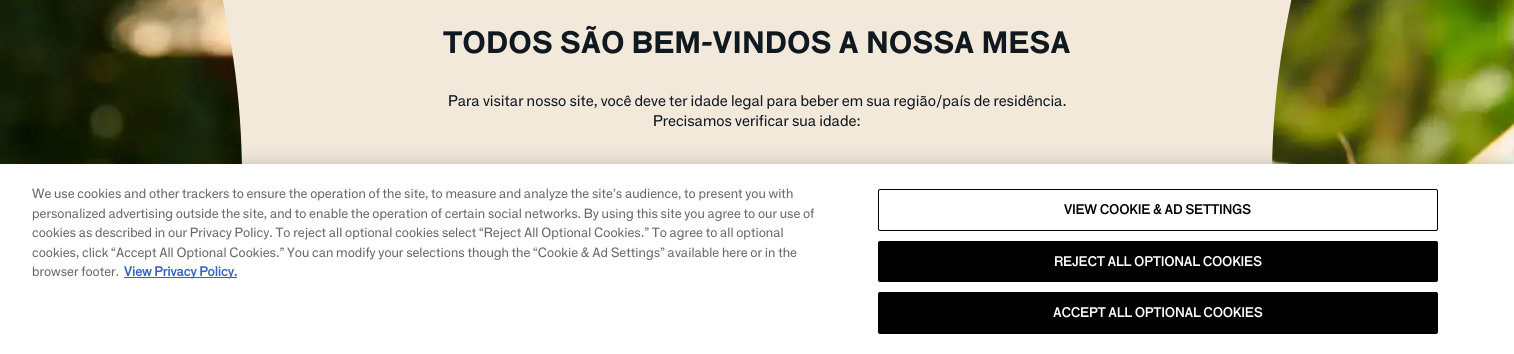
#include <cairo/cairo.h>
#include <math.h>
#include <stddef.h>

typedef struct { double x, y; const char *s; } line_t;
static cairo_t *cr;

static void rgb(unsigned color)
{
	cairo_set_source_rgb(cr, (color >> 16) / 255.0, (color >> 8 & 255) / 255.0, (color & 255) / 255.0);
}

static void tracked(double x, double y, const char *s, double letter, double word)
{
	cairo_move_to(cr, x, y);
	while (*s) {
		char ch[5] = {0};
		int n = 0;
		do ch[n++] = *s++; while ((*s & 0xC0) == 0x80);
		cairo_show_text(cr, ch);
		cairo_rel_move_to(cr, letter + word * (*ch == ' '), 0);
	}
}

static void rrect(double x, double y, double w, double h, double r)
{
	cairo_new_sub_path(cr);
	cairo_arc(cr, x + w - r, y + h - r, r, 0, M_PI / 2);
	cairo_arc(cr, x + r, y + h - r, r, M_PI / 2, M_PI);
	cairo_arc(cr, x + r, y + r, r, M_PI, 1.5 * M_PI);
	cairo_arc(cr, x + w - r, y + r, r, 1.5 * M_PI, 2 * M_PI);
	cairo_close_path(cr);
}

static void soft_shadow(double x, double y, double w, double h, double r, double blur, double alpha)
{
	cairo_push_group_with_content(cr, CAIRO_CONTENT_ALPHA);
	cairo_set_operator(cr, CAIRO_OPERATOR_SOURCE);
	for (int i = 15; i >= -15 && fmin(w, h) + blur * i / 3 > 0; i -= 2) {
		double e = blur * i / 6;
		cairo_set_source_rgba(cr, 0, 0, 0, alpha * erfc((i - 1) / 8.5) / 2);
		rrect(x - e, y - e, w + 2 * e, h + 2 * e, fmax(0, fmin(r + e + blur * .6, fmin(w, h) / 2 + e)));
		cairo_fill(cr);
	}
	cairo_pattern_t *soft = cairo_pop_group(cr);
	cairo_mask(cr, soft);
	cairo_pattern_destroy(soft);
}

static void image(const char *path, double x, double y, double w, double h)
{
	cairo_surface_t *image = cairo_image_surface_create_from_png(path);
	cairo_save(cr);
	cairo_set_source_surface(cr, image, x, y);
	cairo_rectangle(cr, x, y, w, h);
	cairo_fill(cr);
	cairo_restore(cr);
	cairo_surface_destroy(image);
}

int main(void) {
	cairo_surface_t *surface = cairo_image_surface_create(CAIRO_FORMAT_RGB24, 1514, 354);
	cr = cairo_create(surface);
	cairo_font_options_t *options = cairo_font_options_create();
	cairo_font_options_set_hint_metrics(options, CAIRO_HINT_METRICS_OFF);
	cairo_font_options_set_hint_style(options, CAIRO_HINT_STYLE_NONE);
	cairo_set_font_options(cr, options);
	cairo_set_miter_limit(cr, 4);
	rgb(0xffffff);
	cairo_paint(cr);
	image("img/1.png", 0, 0, 1514, 164);
	rgb(0xf2e9db);
	cairo_new_path(cr);
	cairo_move_to(cr, 209, 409);
	cairo_curve_to(cr, 203, 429, 213, 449, 231, 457);
	cairo_curve_to(cr, 391, 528, 569, 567, 757, 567);
	cairo_curve_to(cr, 945, 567, 1123, 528, 1283, 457);
	cairo_curve_to(cr, 1302, 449, 1311, 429, 1305, 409);
	cairo_curve_to(cr, 1284, 334, 1272, 256, 1272, 177);
	cairo_curve_to(cr, 1272, 98, 1284, 20, 1305, -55);
	cairo_curve_to(cr, 1311, -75, 1301, -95, 1283, -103);
	cairo_curve_to(cr, 1123, -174, 945, -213, 757, -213);
	cairo_curve_to(cr, 569, -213, 391, -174, 231, -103);
	cairo_curve_to(cr, 213, -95, 203, -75, 209, -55);
	cairo_curve_to(cr, 230, 20, 242, 97, 242, 177);
	cairo_curve_to(cr, 242, 256, 230, 334, 209, 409);
	cairo_close_path(cr);
	cairo_fill(cr);
	rgb(0x000000);
	soft_shadow(0, 164, 1514, 190, 0, 9, 0.2);
	rgb(0xffffff);
	cairo_rectangle(cr, 0, 164, 1514, 190);
	cairo_fill(cr);
	rgb(0x3860be);
	cairo_rectangle(cr, 124, 277, 113, 1);
	cairo_fill(cr);
	rrect(878.5, 189.5, 559, 41, 1.5);
	rgb(0x000000);
	cairo_set_line_width(cr, 1);
	cairo_stroke(cr);
	rrect(878.5, 241.5, 559, 40, 1.5);
	cairo_fill_preserve(cr);
	cairo_stroke(cr);
	rrect(878.5, 292.5, 559, 41, 1.5);
	cairo_fill_preserve(cr);
	cairo_stroke(cr);
	cairo_select_font_face(cr, "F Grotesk", CAIRO_FONT_SLANT_NORMAL, CAIRO_FONT_WEIGHT_BOLD);
	cairo_set_font_size(cr, 30);
	rgb(0x101820);
	cairo_move_to(cr, 443, 53);
	cairo_show_text(cr, "TODOS SÃO BEM-VINDOS A NOSSA MESA");
	cairo_select_font_face(cr, "F Grotesk", CAIRO_FONT_SLANT_NORMAL, CAIRO_FONT_WEIGHT_NORMAL);
	cairo_set_font_size(cr, 15);
	cairo_move_to(cr, 448, 106);
	cairo_show_text(cr, "Para visitar nosso site, você deve ter idade legal para beber em sua região/país de residência.");
	cairo_move_to(cr, 653, 126);
	cairo_show_text(cr, "Precisamos verificar sua idade:");
	cairo_set_font_size(cr, 13);
	rgb(0x696969);
	{
		static const line_t items[] = {
			{32, 198, "We use cookies and other trackers to ensure the operation of the site, to measure and analyze the site’s audience, to present you with"},
			{32, 218, "personalized advertising outside the site, and to enable the operation of certain social networks. By using this site you agree to our use of"},
			{32, 237, "cookies as described in our Privacy Policy. To reject all optional cookies select “Reject All Optional Cookies.” To agree to all optional"},
			{32, 257, "cookies, click “Accept All Optional Cookies.” You can modify your selections though the “Cookie & Ad Settings” available here or in the"},
			{32, 276, "browser footer."},
		};
		for (size_t i = 0; i < sizeof items / sizeof *items; i++) {
			cairo_move_to(cr, items[i].x, items[i].y);
			cairo_show_text(cr, items[i].s);
		}
	}
	cairo_select_font_face(cr, "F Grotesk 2", CAIRO_FONT_SLANT_NORMAL, CAIRO_FONT_WEIGHT_BOLD);
	rgb(0x3860be);
	cairo_move_to(cr, 124, 276);
	cairo_show_text(cr, "View Privacy Policy.");
	rgb(0x000000);
	tracked(1064, 214, "VIEW COOKIE & AD SETTINGS", 0.1, 0);
	rgb(0xffffff);
	tracked(1054, 266, "REJECT ALL OPTIONAL COOKIES", 0.1, 0);
	tracked(1053, 317, "ACCEPT ALL OPTIONAL COOKIES", 0.1, 0);
	cairo_surface_write_to_png(surface, "page.png");
	cairo_font_options_destroy(options);
	cairo_destroy(cr);
	cairo_surface_destroy(surface);
	return 0;
}
